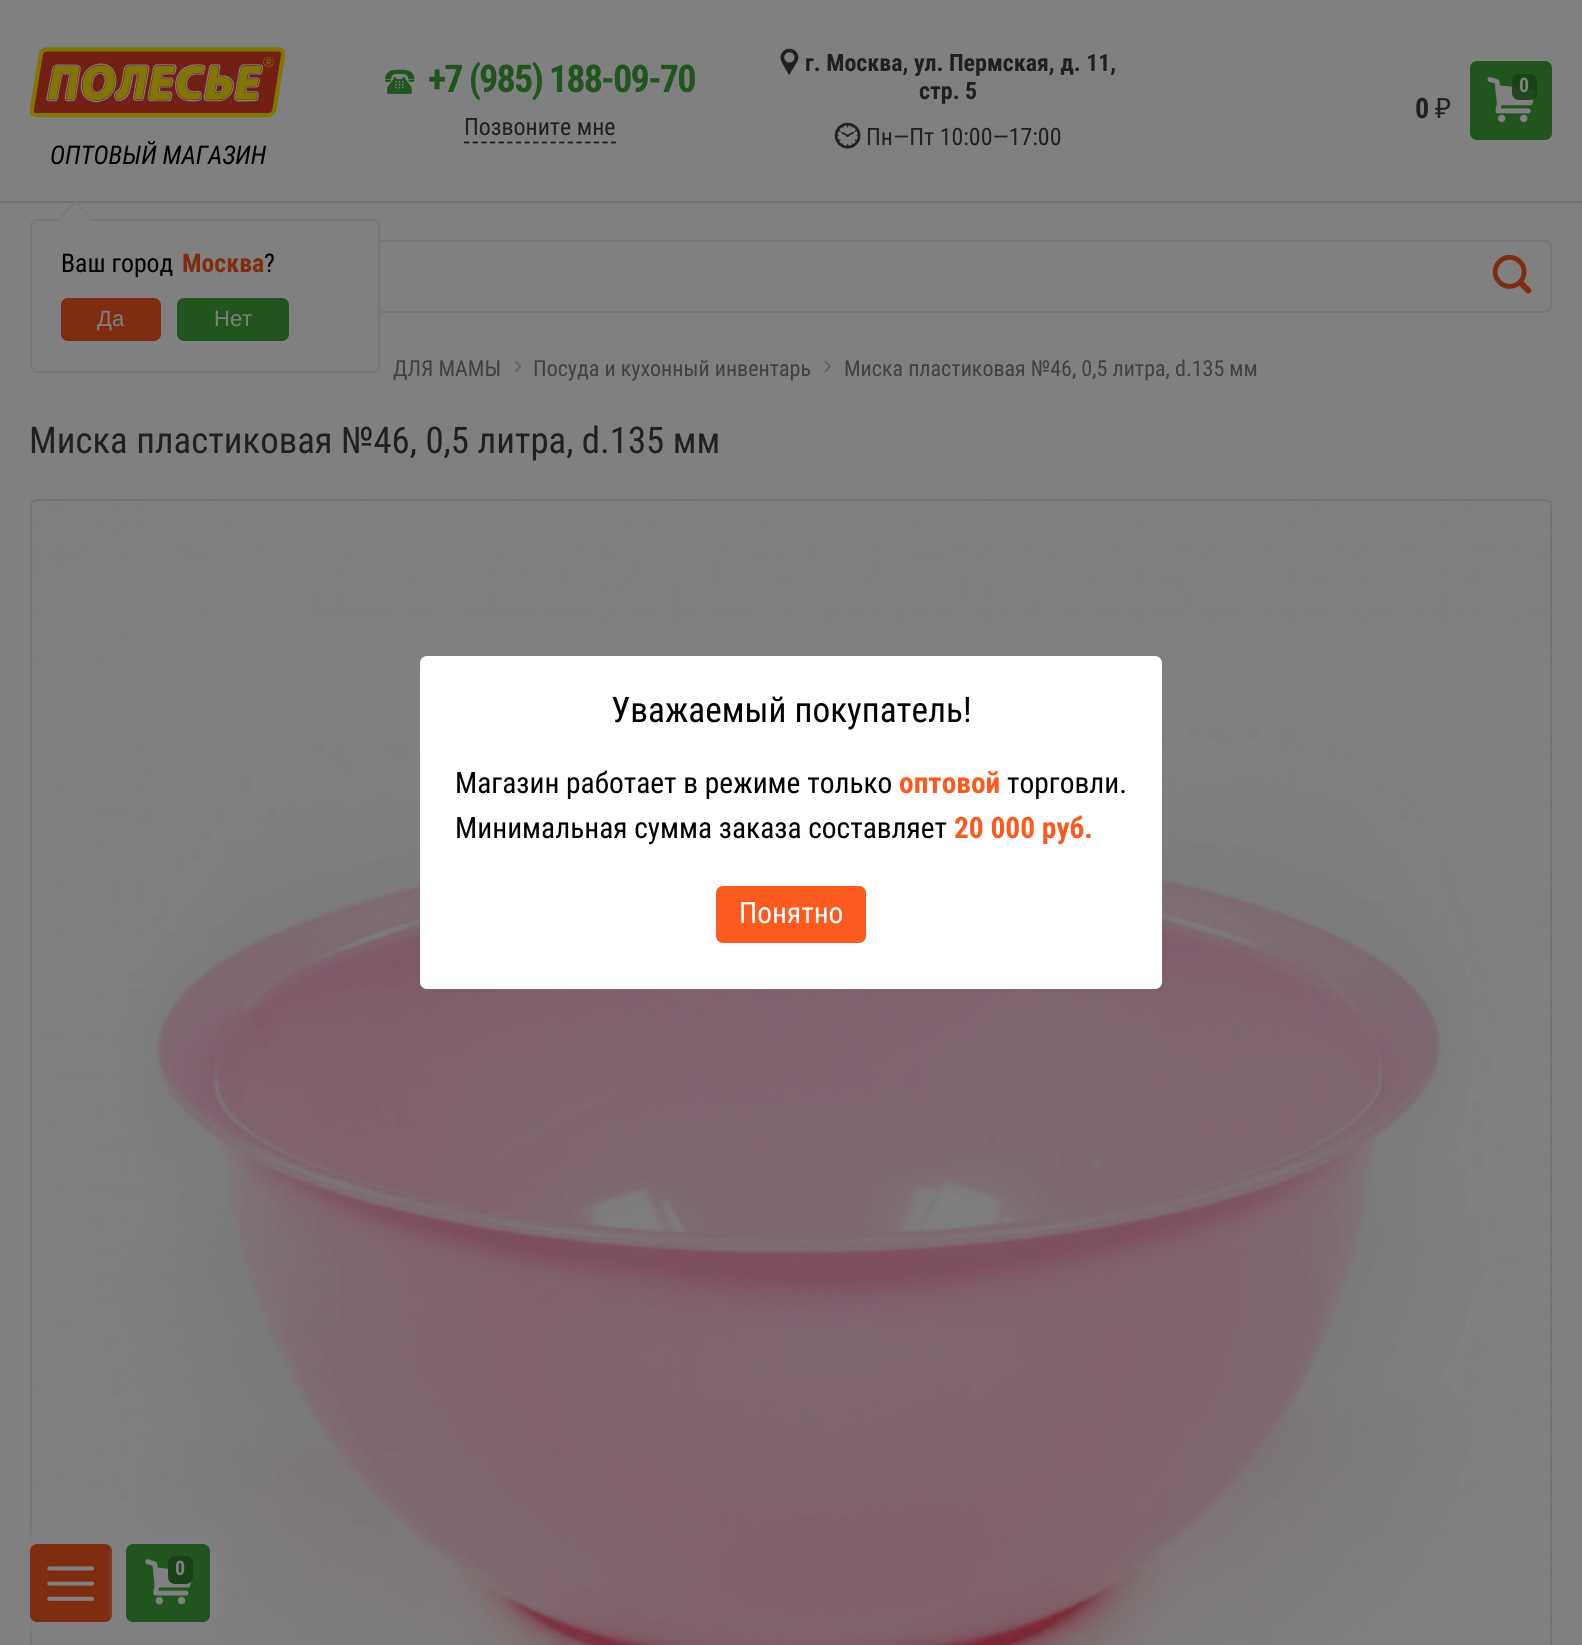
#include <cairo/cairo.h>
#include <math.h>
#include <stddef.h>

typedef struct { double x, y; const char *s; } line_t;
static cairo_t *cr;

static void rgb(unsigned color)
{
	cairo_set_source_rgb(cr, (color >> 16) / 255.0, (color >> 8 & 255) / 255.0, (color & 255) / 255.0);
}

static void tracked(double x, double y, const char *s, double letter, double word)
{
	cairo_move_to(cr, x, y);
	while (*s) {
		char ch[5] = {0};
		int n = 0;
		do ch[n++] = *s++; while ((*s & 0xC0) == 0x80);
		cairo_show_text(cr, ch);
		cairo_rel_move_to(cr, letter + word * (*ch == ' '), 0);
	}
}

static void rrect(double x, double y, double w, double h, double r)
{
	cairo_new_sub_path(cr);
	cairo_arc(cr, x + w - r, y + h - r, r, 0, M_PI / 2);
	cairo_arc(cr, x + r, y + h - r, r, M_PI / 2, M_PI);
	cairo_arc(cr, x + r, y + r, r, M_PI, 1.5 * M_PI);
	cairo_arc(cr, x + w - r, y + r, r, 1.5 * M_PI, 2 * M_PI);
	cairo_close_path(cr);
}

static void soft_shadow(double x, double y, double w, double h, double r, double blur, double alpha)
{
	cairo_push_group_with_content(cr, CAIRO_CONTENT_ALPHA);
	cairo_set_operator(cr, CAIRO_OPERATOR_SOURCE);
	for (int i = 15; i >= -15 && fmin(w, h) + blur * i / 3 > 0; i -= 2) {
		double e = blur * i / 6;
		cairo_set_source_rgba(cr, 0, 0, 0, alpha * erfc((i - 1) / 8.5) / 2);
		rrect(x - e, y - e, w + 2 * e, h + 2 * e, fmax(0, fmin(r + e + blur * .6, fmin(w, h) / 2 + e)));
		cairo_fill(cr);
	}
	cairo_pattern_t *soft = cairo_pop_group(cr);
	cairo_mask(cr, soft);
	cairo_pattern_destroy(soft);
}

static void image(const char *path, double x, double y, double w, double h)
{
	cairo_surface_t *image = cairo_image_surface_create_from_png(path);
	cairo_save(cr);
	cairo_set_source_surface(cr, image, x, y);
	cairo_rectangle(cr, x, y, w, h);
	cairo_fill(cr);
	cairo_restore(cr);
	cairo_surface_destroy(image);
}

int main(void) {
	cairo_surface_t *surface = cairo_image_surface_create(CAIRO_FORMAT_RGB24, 1582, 1645);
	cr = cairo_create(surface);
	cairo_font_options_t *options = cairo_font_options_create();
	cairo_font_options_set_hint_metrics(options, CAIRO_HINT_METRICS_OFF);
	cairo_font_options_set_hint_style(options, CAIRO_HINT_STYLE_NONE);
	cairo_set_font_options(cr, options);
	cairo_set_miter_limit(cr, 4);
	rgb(0x808080);
	cairo_paint(cr);
	rgb(0x737373);
	cairo_rectangle(cr, 0, 201, 1582, 2);
	cairo_fill(cr);
	image("img/1.png", 385, 69, 30, 25);
	cairo_new_path(cr);
	cairo_move_to(cr, 464, 142.5);
	cairo_line_to(cr, 616, 142.5);
	rgb(0x202020);
	cairo_set_line_width(cr, 1.8);
	cairo_set_dash(cr, (double[]){5.25, 3.4}, 2, 0);
	cairo_stroke(cr);
	image("img/2.png", 780, 48, 19, 27);
	image("img/3.png", 834, 122, 27, 27);
	rgb(0x20551e);
	rrect(1470, 61, 82, 79, 7);
	cairo_fill(cr);
	image("img/4.png", 1487, 77, 48, 46);
	cairo_set_source_rgba(cr, 0.098, 0.259, 0.09, 0.9);
	rrect(1512, 74, 25, 26, 7);
	cairo_fill(cr);
	image("img/5.png", 30, 47, 255, 71);
	rrect(31, 241, 1520, 71, 6);
	rgb(0x767676);
	cairo_set_line_width(cr, 2);
	cairo_set_dash(cr, NULL, 0, 0);
	cairo_stroke(cr);
	rgb(0x808080);
	rrect(31, 220, 348, 152, 6);
	cairo_fill_preserve(cr);
	rgb(0x767676);
	cairo_stroke(cr);
	cairo_new_path(cr);
	cairo_move_to(cr, 93, 219);
	cairo_line_to(cr, 58, 219);
	cairo_line_to(cr, 75, 201);
	cairo_close_path(cr);
	cairo_fill(cr);
	rgb(0x808080);
	cairo_new_path(cr);
	cairo_move_to(cr, 93, 220.5);
	cairo_line_to(cr, 58, 220.5);
	cairo_line_to(cr, 75, 203);
	cairo_close_path(cr);
	cairo_fill(cr);
	rgb(0x7e2d10);
	rrect(61, 298, 100, 43, 7);
	cairo_fill(cr);
	rgb(0x20551e);
	rrect(177, 298, 112, 43, 7);
	cairo_fill(cr);
	image("img/6.png", 1492, 255, 40, 39);
	image("img/7.png", 514, 360, 8, 13);
	image("img/8.png", 824, 360, 7, 13);
	rrect(31, 500, 1520, 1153, 6);
	rgb(0x737373);
	cairo_stroke(cr);
	image("img/9.png", 31, 502, 1520, 1143);
	rgb(0xffffff);
	rrect(420, 656, 742, 333, 7);
	cairo_fill(cr);
	rgb(0xfc5a1f);
	rrect(716, 886, 150, 57, 7);
	cairo_fill(cr);
	rgb(0x808080);
	soft_shadow(18, 1531, 106, 104, 21, 3.5, 0.9);
	rgb(0x7e2d10);
	rrect(30, 1544, 82, 78, 7);
	cairo_fill(cr);
	image("img/10.png", 47, 1566, 48, 35);
	rgb(0x808080);
	soft_shadow(114, 1531, 108, 104, 21, 3.5, 0.9);
	rgb(0x20551e);
	rrect(126, 1544, 84, 78, 7);
	cairo_fill(cr);
	image("img/11.png", 145, 1559, 47, 46);
	rgb(0x194217);
	rrect(168, 1556, 25, 28, 7);
	cairo_fill(cr);
	cairo_select_font_face(cr, "Roboto Condensed", CAIRO_FONT_SLANT_NORMAL, CAIRO_FONT_WEIGHT_BOLD);
	cairo_set_font_size(cr, 38.25);
	rgb(0x20551e);
	tracked(428, 92, "+7 (985) 188-09-70", -1.9, 0);
	cairo_select_font_face(cr, "Roboto Condensed", CAIRO_FONT_SLANT_NORMAL, CAIRO_FONT_WEIGHT_NORMAL);
	cairo_set_font_size(cr, 23.9);
	rgb(0x202020);
	cairo_move_to(cr, 464, 135);
	cairo_show_text(cr, "Позвоните мне");
	cairo_select_font_face(cr, "Roboto Condensed", CAIRO_FONT_SLANT_NORMAL, CAIRO_FONT_WEIGHT_BOLD);
	cairo_move_to(cr, 805, 71);
	cairo_show_text(cr, "г. Москва, ул. Пермская, д. 11,");
	cairo_move_to(cr, 919, 99);
	cairo_show_text(cr, "стр. 5");
	cairo_select_font_face(cr, "Roboto Condensed", CAIRO_FONT_SLANT_NORMAL, CAIRO_FONT_WEIGHT_NORMAL);
	cairo_move_to(cr, 866, 145);
	cairo_show_text(cr, "Пн—Пт 10:00—17:00");
	cairo_select_font_face(cr, "Roboto Condensed", CAIRO_FONT_SLANT_NORMAL, CAIRO_FONT_WEIGHT_BOLD);
	cairo_set_font_size(cr, 20);
	rgb(0x808080);
	cairo_move_to(cr, 1519, 92);
	cairo_show_text(cr, "0");
	cairo_set_font_size(cr, 28);
	rgb(0x202020);
	cairo_move_to(cr, 1415, 118);
	cairo_show_text(cr, "0");
	cairo_select_font_face(cr, "Noto Sans", CAIRO_FONT_SLANT_NORMAL, CAIRO_FONT_WEIGHT_NORMAL);
	cairo_move_to(cr, 1435, 118);
	cairo_show_text(cr, "₽");
	cairo_select_font_face(cr, "Roboto Condensed", CAIRO_FONT_SLANT_ITALIC, CAIRO_FONT_WEIGHT_NORMAL);
	cairo_set_font_size(cr, 25.75);
	rgb(0x000000);
	cairo_move_to(cr, 50, 164);
	cairo_show_text(cr, "ОПТОВЫЙ МАГАЗИН");
	cairo_select_font_face(cr, "Roboto Condensed", CAIRO_FONT_SLANT_NORMAL, CAIRO_FONT_WEIGHT_NORMAL);
	cairo_move_to(cr, 61, 272);
	cairo_show_text(cr, "Ваш город");
	cairo_select_font_face(cr, "Roboto Condensed", CAIRO_FONT_SLANT_NORMAL, CAIRO_FONT_WEIGHT_BOLD);
	rgb(0x7e2d10);
	cairo_move_to(cr, 182, 272);
	cairo_show_text(cr, "Москва");
	cairo_select_font_face(cr, "Roboto Condensed", CAIRO_FONT_SLANT_NORMAL, CAIRO_FONT_WEIGHT_NORMAL);
	rgb(0x000000);
	cairo_move_to(cr, 264, 272);
	cairo_show_text(cr, "?");
	cairo_select_font_face(cr, "Liberation Sans", CAIRO_FONT_SLANT_NORMAL, CAIRO_FONT_WEIGHT_NORMAL);
	cairo_set_font_size(cr, 22);
	rgb(0x808080);
	cairo_move_to(cr, 97, 326);
	cairo_show_text(cr, "Да");
	cairo_move_to(cr, 214, 326);
	cairo_show_text(cr, "Нет");
	cairo_select_font_face(cr, "Roboto Condensed", CAIRO_FONT_SLANT_NORMAL, CAIRO_FONT_WEIGHT_NORMAL);
	rgb(0x404040);
	{
		static const line_t items[] = {
			{393, 376, "ДЛЯ МАМЫ"},
			{533, 376, "Посуда и кухонный инвентарь"},
			{844, 376, "Миска пластиковая №46, 0,5 литра, d.135 мм"},
		};
		for (size_t i = 0; i < sizeof items / sizeof *items; i++) {
			cairo_move_to(cr, items[i].x, items[i].y);
			cairo_show_text(cr, items[i].s);
		}
	}
	cairo_set_font_size(cr, 36.75);
	rgb(0x202020);
	cairo_move_to(cr, 29, 453);
	cairo_show_text(cr, "Миска пластиковая №46, 0,5 литра, d.135 мм");
	cairo_set_font_size(cr, 35.25);
	rgb(0x000000);
	cairo_move_to(cr, 611, 722);
	cairo_show_text(cr, "Уважаемый покупатель!");
	cairo_set_font_size(cr, 29.4);
	cairo_move_to(cr, 455, 793);
	cairo_show_text(cr, "Магазин работает в режиме только");
	cairo_select_font_face(cr, "Roboto Condensed", CAIRO_FONT_SLANT_NORMAL, CAIRO_FONT_WEIGHT_BOLD);
	rgb(0xfc5a1f);
	cairo_move_to(cr, 899, 793);
	cairo_show_text(cr, "оптовой");
	cairo_select_font_face(cr, "Roboto Condensed", CAIRO_FONT_SLANT_NORMAL, CAIRO_FONT_WEIGHT_NORMAL);
	rgb(0x000000);
	cairo_move_to(cr, 1007, 793);
	cairo_show_text(cr, "торговли.");
	cairo_move_to(cr, 455, 838);
	cairo_show_text(cr, "Минимальная сумма заказа составляет");
	cairo_select_font_face(cr, "Roboto Condensed", CAIRO_FONT_SLANT_NORMAL, CAIRO_FONT_WEIGHT_BOLD);
	rgb(0xfc5a1f);
	cairo_move_to(cr, 954, 838);
	cairo_show_text(cr, "20 000 руб.");
	cairo_select_font_face(cr, "Roboto Condensed", CAIRO_FONT_SLANT_NORMAL, CAIRO_FONT_WEIGHT_NORMAL);
	rgb(0xffffff);
	cairo_move_to(cr, 739, 923);
	cairo_show_text(cr, "Понятно");
	cairo_select_font_face(cr, "Roboto Condensed", CAIRO_FONT_SLANT_NORMAL, CAIRO_FONT_WEIGHT_BOLD);
	cairo_set_font_size(cr, 20);
	rgb(0x808080);
	cairo_move_to(cr, 175, 1575);
	cairo_show_text(cr, "0");
	cairo_surface_write_to_png(surface, "page.png");
	cairo_font_options_destroy(options);
	cairo_destroy(cr);
	cairo_surface_destroy(surface);
	return 0;
}
